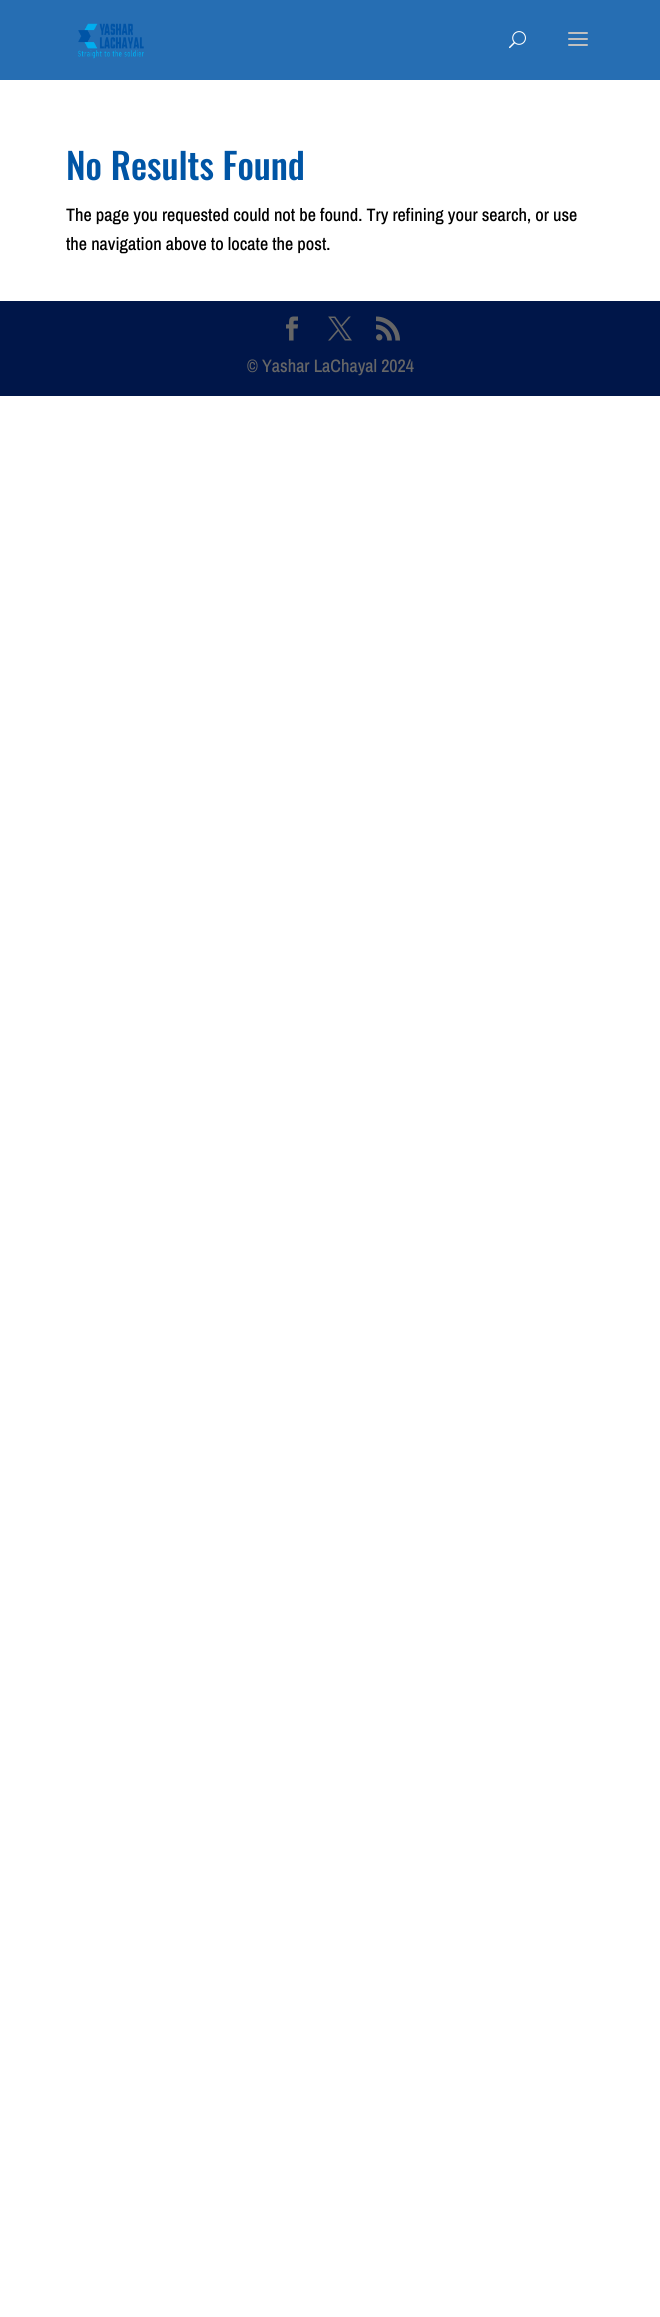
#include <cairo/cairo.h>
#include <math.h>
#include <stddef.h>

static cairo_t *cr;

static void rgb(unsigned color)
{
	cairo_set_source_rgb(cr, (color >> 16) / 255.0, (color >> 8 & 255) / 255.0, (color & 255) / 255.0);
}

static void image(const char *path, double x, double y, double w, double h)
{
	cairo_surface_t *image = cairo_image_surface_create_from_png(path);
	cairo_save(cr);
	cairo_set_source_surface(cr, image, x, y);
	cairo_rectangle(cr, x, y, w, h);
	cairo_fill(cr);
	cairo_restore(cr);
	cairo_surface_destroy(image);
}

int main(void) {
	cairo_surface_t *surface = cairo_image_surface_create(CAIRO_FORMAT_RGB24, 660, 2317);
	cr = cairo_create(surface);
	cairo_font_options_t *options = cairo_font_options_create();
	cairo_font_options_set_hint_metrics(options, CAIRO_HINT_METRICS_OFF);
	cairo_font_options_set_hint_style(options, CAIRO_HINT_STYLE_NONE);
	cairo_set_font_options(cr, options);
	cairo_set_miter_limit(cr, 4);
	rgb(0xffffff);
	cairo_paint(cr);
	rgb(0x266eb3);
	cairo_rectangle(cr, 0, 0, 660, 80);
	cairo_fill(cr);
	image("img/1.png", 78, 23, 66, 36);
	image("img/2.png", 509, 31, 17, 18);
	image("img/3.png", 568, 32, 20, 14);
	rgb(0x001649);
	cairo_rectangle(cr, 0, 301, 660, 95);
	cairo_fill(cr);
	image("img/4.png", 286, 316, 12, 25);
	image("img/5.png", 328, 316, 24, 25);
	image("img/6.png", 376, 316, 24, 25);
	cairo_select_font_face(cr, "Oswald Medium", CAIRO_FONT_SLANT_NORMAL, CAIRO_FONT_WEIGHT_NORMAL);
	cairo_set_font_size(cr, 36);
	rgb(0x0055a5);
	cairo_move_to(cr, 66, 180);
	cairo_show_text(cr, "No Results Found");
	cairo_select_font_face(cr, "Archivo Narrow Medium", CAIRO_FONT_SLANT_NORMAL, CAIRO_FONT_WEIGHT_NORMAL);
	cairo_set_font_size(cr, 18);
	rgb(0x000000);
	cairo_move_to(cr, 66, 221);
	cairo_show_text(cr, "The page you requested could not be found. Try refining your search, or use");
	cairo_move_to(cr, 66, 250);
	cairo_show_text(cr, "the navigation above to locate the post.");
	rgb(0x666666);
	cairo_move_to(cr, 247, 372);
	cairo_show_text(cr, "© Yashar LaChayal 2024");
	cairo_surface_write_to_png(surface, "page.png");
	cairo_font_options_destroy(options);
	cairo_destroy(cr);
	cairo_surface_destroy(surface);
	return 0;
}
